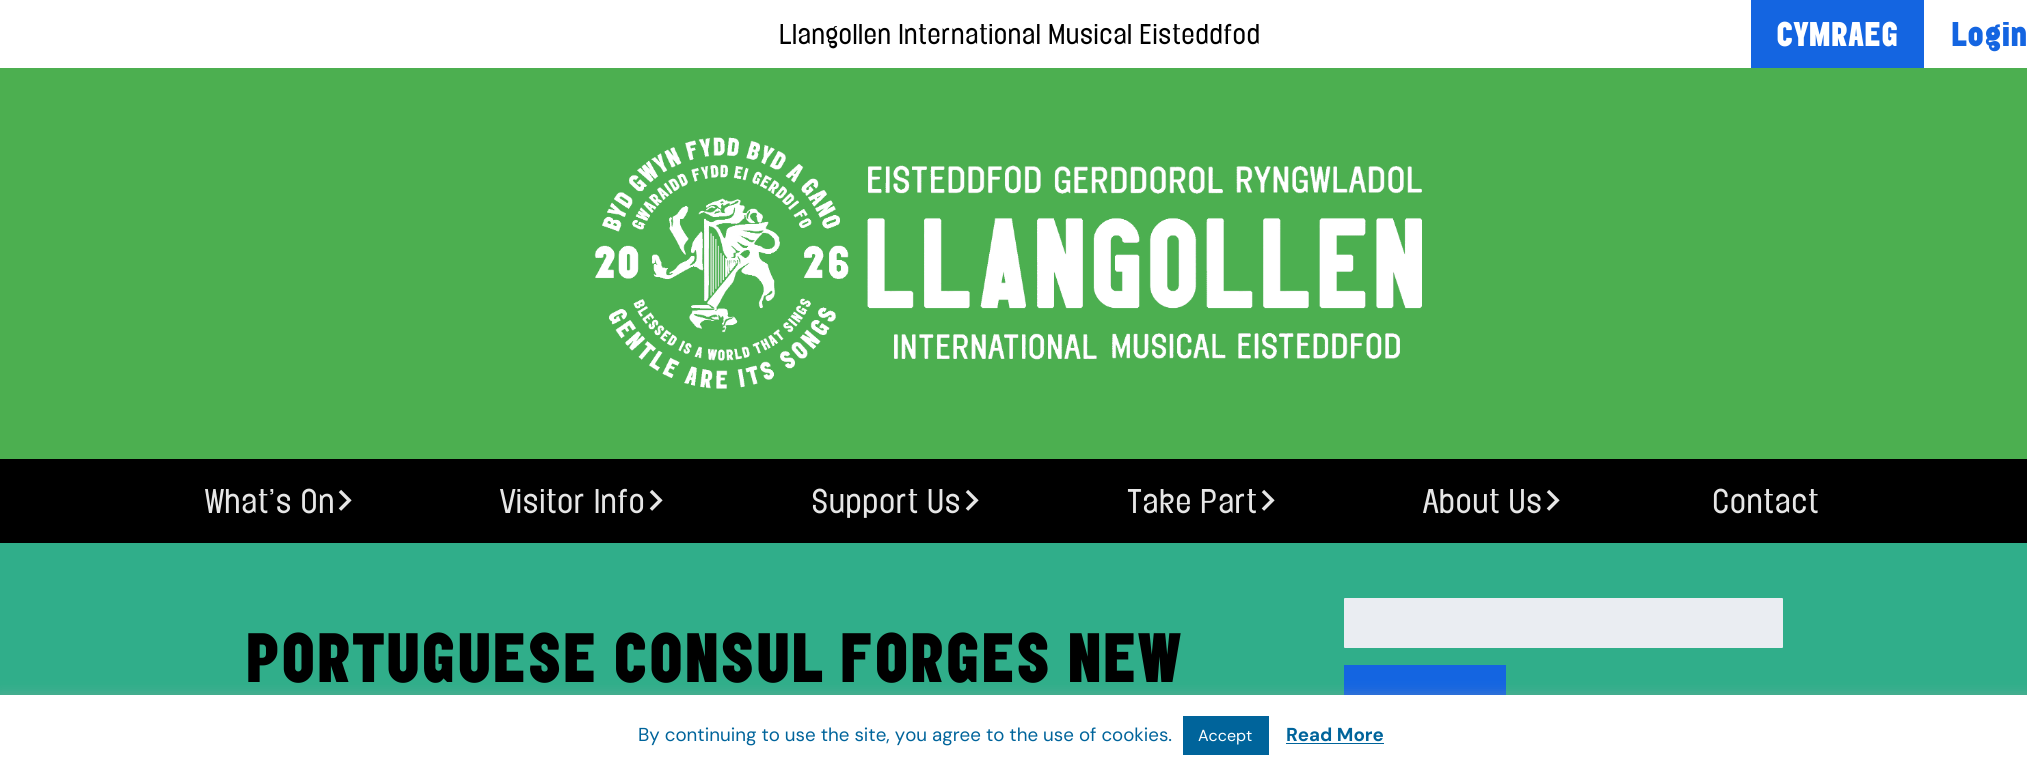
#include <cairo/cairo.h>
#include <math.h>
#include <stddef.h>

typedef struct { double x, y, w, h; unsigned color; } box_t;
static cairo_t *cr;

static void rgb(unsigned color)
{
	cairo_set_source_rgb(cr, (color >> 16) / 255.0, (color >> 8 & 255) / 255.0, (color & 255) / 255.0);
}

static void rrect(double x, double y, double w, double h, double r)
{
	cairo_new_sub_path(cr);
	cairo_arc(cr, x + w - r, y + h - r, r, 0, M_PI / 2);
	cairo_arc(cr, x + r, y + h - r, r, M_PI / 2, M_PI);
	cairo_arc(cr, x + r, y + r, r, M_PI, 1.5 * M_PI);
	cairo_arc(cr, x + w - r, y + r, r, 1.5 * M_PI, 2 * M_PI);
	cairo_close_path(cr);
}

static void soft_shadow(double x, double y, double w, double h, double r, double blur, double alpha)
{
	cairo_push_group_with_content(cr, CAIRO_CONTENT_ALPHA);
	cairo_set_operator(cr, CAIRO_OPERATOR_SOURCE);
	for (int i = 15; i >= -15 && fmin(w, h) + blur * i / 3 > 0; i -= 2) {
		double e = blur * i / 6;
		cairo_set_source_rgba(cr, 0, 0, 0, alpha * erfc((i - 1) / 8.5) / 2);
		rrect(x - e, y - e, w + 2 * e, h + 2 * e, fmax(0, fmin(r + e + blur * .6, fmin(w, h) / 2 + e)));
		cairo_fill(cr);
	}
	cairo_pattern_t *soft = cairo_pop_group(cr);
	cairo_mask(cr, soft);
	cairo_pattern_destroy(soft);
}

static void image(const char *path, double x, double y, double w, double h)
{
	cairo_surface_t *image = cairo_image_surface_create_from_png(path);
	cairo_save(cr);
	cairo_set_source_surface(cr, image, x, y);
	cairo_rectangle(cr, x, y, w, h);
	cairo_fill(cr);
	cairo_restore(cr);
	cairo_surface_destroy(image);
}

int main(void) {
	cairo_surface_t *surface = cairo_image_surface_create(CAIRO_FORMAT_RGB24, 2027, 776);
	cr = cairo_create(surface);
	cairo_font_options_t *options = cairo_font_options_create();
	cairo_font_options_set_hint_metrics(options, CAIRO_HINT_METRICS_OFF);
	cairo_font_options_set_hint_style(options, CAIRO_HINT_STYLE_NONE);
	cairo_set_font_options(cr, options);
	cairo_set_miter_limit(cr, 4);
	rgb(0x30ae8a);
	cairo_paint(cr);
	rgb(0xffffff);
	cairo_rectangle(cr, 0, 0, 2027, 68);
	cairo_fill(cr);
	rgb(0x4caf50);
	cairo_rectangle(cr, 0, 68, 2027, 391);
	cairo_fill(cr);
	image("img/1.png", 594, 137, 828, 252);
	rgb(0x1465e1);
	cairo_rectangle(cr, 1751, 0, 173, 68);
	cairo_fill(cr);
	rgb(0x000000);
	cairo_rectangle(cr, 0, 459, 2027, 84);
	cairo_fill(cr);
	rgb(0xeaedf2);
	rrect(1344, 598, 439, 50, 1);
	cairo_fill(cr);
	rgb(0x1465e1);
	cairo_rectangle(cr, 1344, 665, 162, 30);
	cairo_fill(cr);
	rgb(0xacabab);
	soft_shadow(0, 694, 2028, 81, 0, 6, 0.3);
	{
		static const box_t items[] = {
			{0, 695, 2027, 81, 0xffffff},
			{1183, 716, 86, 39, 0x00649b},
			{1286, 743, 98, 1, 0x00649b},
		};
		for (size_t i = 0; i < sizeof items / sizeof *items; i++) {
			rgb(items[i].color);
			cairo_rectangle(cr, items[i].x, items[i].y, items[i].w, items[i].h);
			cairo_fill(cr);
		}
	}
	cairo_select_font_face(cr, "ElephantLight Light", CAIRO_FONT_SLANT_NORMAL, CAIRO_FONT_WEIGHT_NORMAL);
	cairo_set_font_size(cr, 25);
	rgb(0x000000);
	cairo_move_to(cr, 779, 44);
	cairo_show_text(cr, "Llangollen International Musical Eisteddfod");
	cairo_select_font_face(cr, "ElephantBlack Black", CAIRO_FONT_SLANT_NORMAL, CAIRO_FONT_WEIGHT_NORMAL);
	cairo_set_font_size(cr, 30);
	rgb(0xffffff);
	cairo_move_to(cr, 1776, 46);
	cairo_show_text(cr, "CYMRAEG");
	rgb(0x1465e1);
	cairo_move_to(cr, 1951, 46);
	cairo_show_text(cr, "Login");
	cairo_select_font_face(cr, "ElephantLight Light", CAIRO_FONT_SLANT_NORMAL, CAIRO_FONT_WEIGHT_NORMAL);
	rgb(0xe6e6e6);
	cairo_move_to(cr, 205, 513);
	cairo_show_text(cr, "What’s On");
	cairo_set_font_size(cr, 36);
	cairo_move_to(cr, 338, 513);
	cairo_show_text(cr, ">");
	cairo_set_font_size(cr, 30);
	cairo_move_to(cr, 500, 513);
	cairo_show_text(cr, "Visitor Info");
	cairo_set_font_size(cr, 36);
	cairo_move_to(cr, 649, 513);
	cairo_show_text(cr, ">");
	cairo_set_font_size(cr, 30);
	cairo_move_to(cr, 811, 513);
	cairo_show_text(cr, "Support Us");
	cairo_set_font_size(cr, 36);
	cairo_move_to(cr, 965, 513);
	cairo_show_text(cr, ">");
	cairo_set_font_size(cr, 30);
	cairo_move_to(cr, 1127, 513);
	cairo_show_text(cr, "Take Part");
	cairo_set_font_size(cr, 36);
	cairo_move_to(cr, 1261, 513);
	cairo_show_text(cr, ">");
	cairo_set_font_size(cr, 30);
	cairo_move_to(cr, 1423, 513);
	cairo_show_text(cr, "About Us");
	cairo_set_font_size(cr, 36);
	cairo_move_to(cr, 1546, 513);
	cairo_show_text(cr, ">");
	cairo_set_font_size(cr, 30);
	cairo_move_to(cr, 1712, 513);
	cairo_show_text(cr, "Contact");
	cairo_select_font_face(cr, "ElephantBlack Black", CAIRO_FONT_SLANT_NORMAL, CAIRO_FONT_WEIGHT_NORMAL);
	cairo_set_font_size(cr, 61);
	rgb(0x000000);
	cairo_move_to(cr, 245, 682);
	cairo_show_text(cr, "PORTUGUESE CONSUL FORGES NEW");
	cairo_select_font_face(cr, "DM Sans", CAIRO_FONT_SLANT_NORMAL, CAIRO_FONT_WEIGHT_NORMAL);
	cairo_set_font_size(cr, 18.75);
	rgb(0x00649b);
	cairo_move_to(cr, 638, 741);
	cairo_show_text(cr, "By continuing to use the site, you agree to the use of cookies.");
	cairo_set_font_size(cr, 16);
	rgb(0xffffff);
	cairo_move_to(cr, 1198, 741);
	cairo_show_text(cr, "Accept");
	cairo_select_font_face(cr, "DM Sans", CAIRO_FONT_SLANT_NORMAL, CAIRO_FONT_WEIGHT_BOLD);
	cairo_set_font_size(cr, 18.75);
	rgb(0x00649b);
	cairo_move_to(cr, 1286, 741);
	cairo_show_text(cr, "Read More");
	cairo_surface_write_to_png(surface, "page.png");
	cairo_font_options_destroy(options);
	cairo_destroy(cr);
	cairo_surface_destroy(surface);
	return 0;
}
